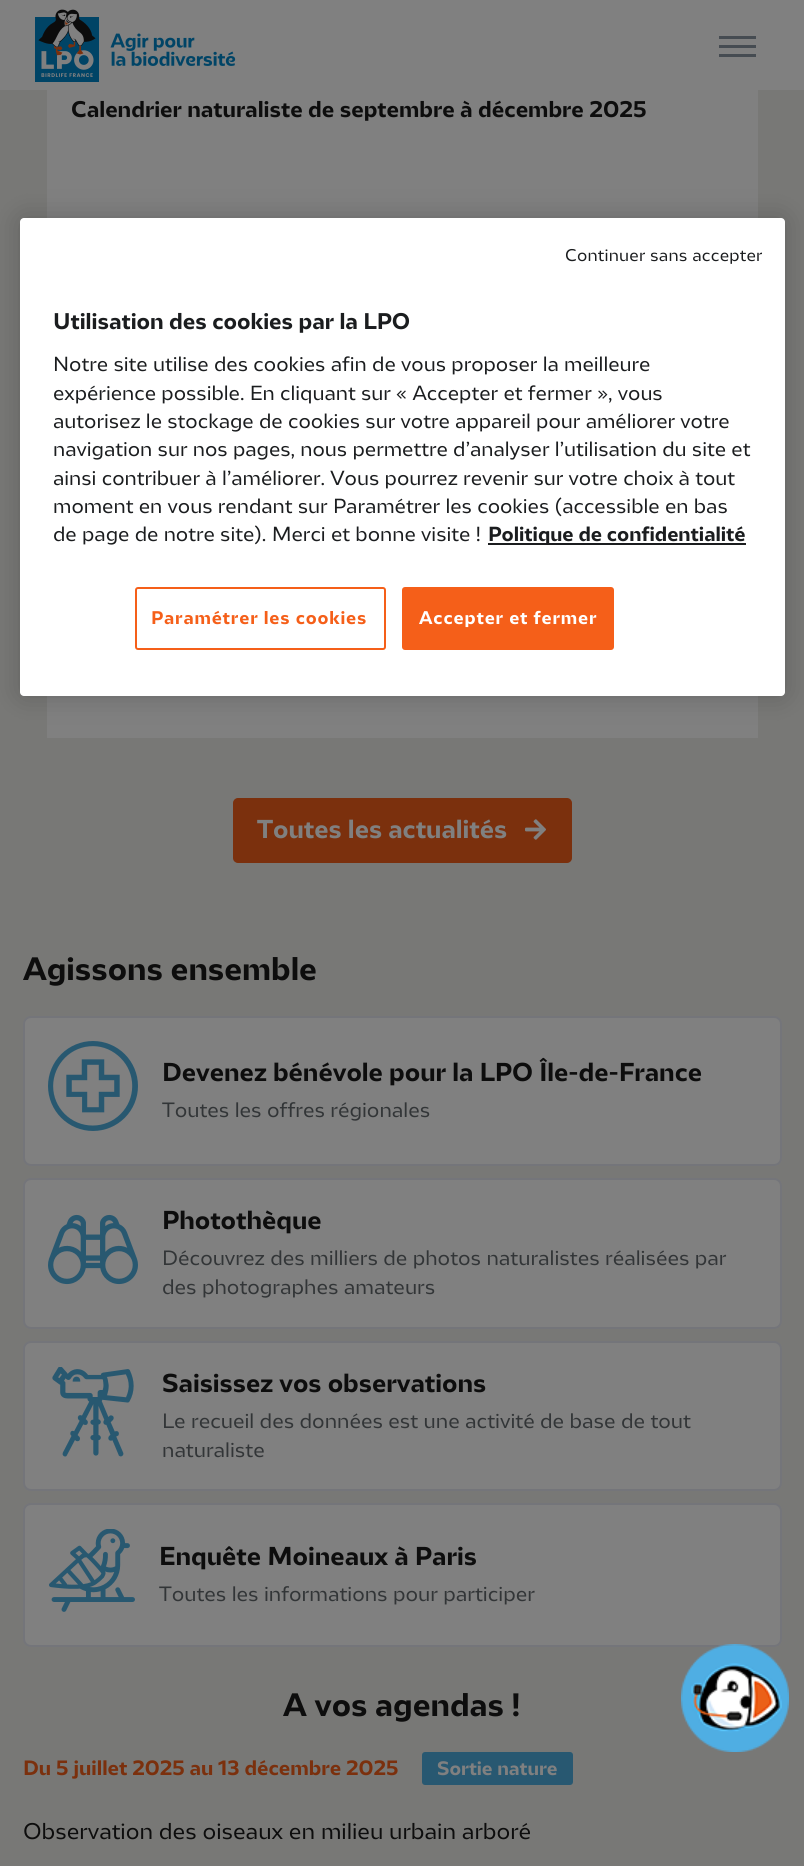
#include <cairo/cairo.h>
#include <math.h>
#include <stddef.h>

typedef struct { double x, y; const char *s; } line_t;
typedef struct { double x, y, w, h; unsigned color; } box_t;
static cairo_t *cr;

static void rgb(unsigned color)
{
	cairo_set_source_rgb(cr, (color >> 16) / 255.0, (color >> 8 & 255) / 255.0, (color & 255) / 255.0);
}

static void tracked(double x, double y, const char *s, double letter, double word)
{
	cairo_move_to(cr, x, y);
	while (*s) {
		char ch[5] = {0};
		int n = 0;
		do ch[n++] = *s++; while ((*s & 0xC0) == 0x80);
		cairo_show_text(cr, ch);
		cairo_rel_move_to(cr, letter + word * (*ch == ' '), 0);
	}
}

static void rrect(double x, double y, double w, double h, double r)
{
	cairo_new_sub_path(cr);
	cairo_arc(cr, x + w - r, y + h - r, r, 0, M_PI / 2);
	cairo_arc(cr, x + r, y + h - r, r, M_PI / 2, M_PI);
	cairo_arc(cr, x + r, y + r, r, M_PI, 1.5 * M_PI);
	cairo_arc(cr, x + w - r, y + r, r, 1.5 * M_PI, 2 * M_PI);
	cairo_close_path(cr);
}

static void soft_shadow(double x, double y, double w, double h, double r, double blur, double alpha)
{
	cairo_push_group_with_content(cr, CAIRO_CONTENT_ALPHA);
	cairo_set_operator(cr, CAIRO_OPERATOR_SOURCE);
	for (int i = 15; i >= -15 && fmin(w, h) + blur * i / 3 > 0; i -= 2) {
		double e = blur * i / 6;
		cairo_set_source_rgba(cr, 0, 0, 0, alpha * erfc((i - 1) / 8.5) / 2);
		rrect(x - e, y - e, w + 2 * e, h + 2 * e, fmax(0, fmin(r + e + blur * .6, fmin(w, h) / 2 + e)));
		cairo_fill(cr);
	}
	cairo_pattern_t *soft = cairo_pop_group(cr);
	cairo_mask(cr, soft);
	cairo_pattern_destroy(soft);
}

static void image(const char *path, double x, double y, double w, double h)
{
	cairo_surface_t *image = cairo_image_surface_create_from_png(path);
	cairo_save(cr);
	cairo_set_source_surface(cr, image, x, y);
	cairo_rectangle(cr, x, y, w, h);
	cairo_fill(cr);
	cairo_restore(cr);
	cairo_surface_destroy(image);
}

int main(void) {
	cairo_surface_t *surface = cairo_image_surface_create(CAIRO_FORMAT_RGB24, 804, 1866);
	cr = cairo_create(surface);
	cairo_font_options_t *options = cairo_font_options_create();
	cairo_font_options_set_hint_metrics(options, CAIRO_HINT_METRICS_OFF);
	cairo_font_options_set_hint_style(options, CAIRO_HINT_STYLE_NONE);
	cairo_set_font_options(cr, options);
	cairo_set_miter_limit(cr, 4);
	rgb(0x787876);
	cairo_paint(cr);
	rgb(0x808080);
	cairo_rectangle(cr, 0, 0, 804, 90);
	cairo_fill(cr);
	image("img/1.png", 35, 9, 201, 73);
	{
		static const box_t items[] = {
			{719, 36, 37, 3, 0x464c52},
			{719, 45, 37, 3, 0x464c52},
			{719, 54, 37, 3, 0x464c52},
			{47, 90, 711, 128, 0x808080},
			{47, 696, 711, 42, 0x808080},
		};
		for (size_t i = 0; i < sizeof items / sizeof *items; i++) {
			rgb(items[i].color);
			cairo_rectangle(cr, items[i].x, items[i].y, items[i].w, items[i].h);
			cairo_fill(cr);
		}
	}
	rgb(0x7b300d);
	rrect(234, 799, 337, 63, 4);
	cairo_fill_preserve(cr);
	cairo_stroke(cr);
	image("img/2.png", 525, 819, 21, 21);
	rgb(0x808080);
	rrect(24, 1017, 757, 148, 7);
	cairo_fill_preserve(cr);
	rgb(0x74757a);
	cairo_stroke(cr);
	image("img/3.png", 48, 1041, 90, 90);
	rgb(0x808080);
	rrect(24, 1179, 757, 149, 7);
	cairo_fill_preserve(cr);
	rgb(0x74757a);
	cairo_stroke(cr);
	image("img/4.png", 48, 1214, 90, 71);
	rgb(0x808080);
	rrect(24, 1342, 757, 148, 7);
	cairo_fill_preserve(cr);
	rgb(0x74757a);
	cairo_stroke(cr);
	image("img/5.png", 52, 1367, 82, 90);
	rgb(0x808080);
	rrect(24, 1504, 757, 142, 7);
	cairo_fill_preserve(cr);
	rgb(0x74757a);
	cairo_stroke(cr);
	image("img/6.png", 49, 1529, 86, 83);
	rgb(0x285871);
	rrect(422, 1752, 151, 33, 3);
	cairo_fill(cr);
	rgb(0x000000);
	soft_shadow(20, 218, 765, 478, 4, 13.5, 0.2);
	rgb(0xffffff);
	rrect(20, 218, 765, 478, 4);
	cairo_fill(cr);
	rgb(0x1b1d1f);
	cairo_rectangle(cr, 488, 543, 258, 2);
	cairo_fill(cr);
	rrect(136, 588, 249, 61, 2);
	rgb(0xf55f19);
	cairo_stroke(cr);
	rrect(403, 588, 210, 61, 2);
	cairo_fill_preserve(cr);
	cairo_stroke(cr);
	image("img/7.png", 681, 1644, 108, 108);
	cairo_select_font_face(cr, "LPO", CAIRO_FONT_SLANT_NORMAL, CAIRO_FONT_WEIGHT_BOLD);
	cairo_set_font_size(cr, 21);
	rgb(0x0d0d0d);
	cairo_move_to(cr, 71, 117);
	cairo_show_text(cr, "Calendrier naturaliste de septembre à décembre 2025");
	cairo_set_font_size(cr, 24);
	rgb(0x808080);
	cairo_move_to(cr, 257, 838);
	cairo_show_text(cr, "Toutes les actualités");
	cairo_set_font_size(cr, 30);
	rgb(0x0d0d0d);
	cairo_move_to(cr, 23, 980);
	cairo_show_text(cr, "Agissons ensemble");
	cairo_set_font_size(cr, 24);
	cairo_move_to(cr, 162, 1081);
	cairo_show_text(cr, "Devenez bénévole pour la LPO Île-de-France");
	cairo_select_font_face(cr, "LPO", CAIRO_FONT_SLANT_NORMAL, CAIRO_FONT_WEIGHT_NORMAL);
	cairo_set_font_size(cr, 19.2);
	rgb(0x323537);
	cairo_move_to(cr, 162, 1117);
	cairo_show_text(cr, "Toutes les offres régionales");
	cairo_select_font_face(cr, "LPO", CAIRO_FONT_SLANT_NORMAL, CAIRO_FONT_WEIGHT_BOLD);
	cairo_set_font_size(cr, 24);
	rgb(0x0d0d0d);
	cairo_move_to(cr, 162, 1229);
	cairo_show_text(cr, "Photothèque");
	cairo_select_font_face(cr, "LPO", CAIRO_FONT_SLANT_NORMAL, CAIRO_FONT_WEIGHT_NORMAL);
	cairo_set_font_size(cr, 19.2);
	rgb(0x323537);
	cairo_move_to(cr, 162, 1265);
	cairo_show_text(cr, "Découvrez des milliers de photos naturalistes réalisées par");
	cairo_move_to(cr, 162, 1294);
	cairo_show_text(cr, "des photographes amateurs");
	cairo_select_font_face(cr, "LPO", CAIRO_FONT_SLANT_NORMAL, CAIRO_FONT_WEIGHT_BOLD);
	cairo_set_font_size(cr, 24);
	rgb(0x0d0d0d);
	cairo_move_to(cr, 162, 1392);
	cairo_show_text(cr, "Saisissez vos observations");
	cairo_select_font_face(cr, "LPO", CAIRO_FONT_SLANT_NORMAL, CAIRO_FONT_WEIGHT_NORMAL);
	cairo_set_font_size(cr, 19.2);
	rgb(0x323537);
	cairo_move_to(cr, 162, 1428);
	cairo_show_text(cr, "Le recueil des données est une activité de base de tout");
	cairo_move_to(cr, 162, 1457);
	cairo_show_text(cr, "naturaliste");
	cairo_select_font_face(cr, "LPO", CAIRO_FONT_SLANT_NORMAL, CAIRO_FONT_WEIGHT_BOLD);
	cairo_set_font_size(cr, 24);
	rgb(0x0d0d0d);
	cairo_move_to(cr, 159, 1565);
	cairo_show_text(cr, "Enquête Moineaux à Paris");
	cairo_select_font_face(cr, "LPO", CAIRO_FONT_SLANT_NORMAL, CAIRO_FONT_WEIGHT_NORMAL);
	cairo_set_font_size(cr, 19.2);
	rgb(0x323537);
	cairo_move_to(cr, 159, 1601);
	cairo_show_text(cr, "Toutes les informations pour participer");
	cairo_select_font_face(cr, "LPO", CAIRO_FONT_SLANT_NORMAL, CAIRO_FONT_WEIGHT_BOLD);
	cairo_set_font_size(cr, 30);
	rgb(0x0d0d0d);
	cairo_move_to(cr, 283, 1716);
	cairo_show_text(cr, "A vos agendas !");
	cairo_set_font_size(cr, 19.2);
	rgb(0x7b300d);
	cairo_move_to(cr, 23, 1775);
	cairo_show_text(cr, "Du 5 juillet 2025 au 13 décembre 2025");
	cairo_set_font_size(cr, 18);
	rgb(0x808080);
	cairo_move_to(cr, 437, 1775);
	cairo_show_text(cr, "Sortie nature");
	cairo_select_font_face(cr, "LPO", CAIRO_FONT_SLANT_NORMAL, CAIRO_FONT_WEIGHT_NORMAL);
	cairo_set_font_size(cr, 21);
	rgb(0x0d0d0d);
	cairo_move_to(cr, 23, 1839);
	cairo_show_text(cr, "Observation des oiseaux en milieu urbain arboré");
	cairo_set_font_size(cr, 15.75);
	rgb(0x1b1d1f);
	tracked(565, 261, "Continuer sans accepter", 0.2, 0);
	cairo_select_font_face(cr, "LPO", CAIRO_FONT_SLANT_NORMAL, CAIRO_FONT_WEIGHT_BOLD);
	cairo_set_font_size(cr, 21);
	cairo_move_to(cr, 53, 329);
	cairo_show_text(cr, "Utilisation des cookies par la LPO");
	cairo_select_font_face(cr, "LPO", CAIRO_FONT_SLANT_NORMAL, CAIRO_FONT_WEIGHT_NORMAL);
	cairo_set_font_size(cr, 18.9);
	{
		static const line_t items[] = {
			{53, 371, "Notre site utilise des cookies afin de vous proposer la meilleure"},
			{53, 400, "expérience possible. En cliquant sur « Accepter et fermer », vous"},
			{53, 428, "autorisez le stockage de cookies sur votre appareil pour améliorer votre"},
			{53, 456, "navigation sur nos pages, nous permettre d’analyser l’utilisation du site et"},
			{53, 485, "ainsi contribuer à l’améliorer. Vous pourrez revenir sur votre choix à tout"},
			{53, 513, "moment en vous rendant sur Paramétrer les cookies (accessible en bas"},
			{53, 541, "de page de notre site). Merci et bonne visite !"},
		};
		for (size_t i = 0; i < sizeof items / sizeof *items; i++) {
			cairo_move_to(cr, items[i].x, items[i].y);
			cairo_show_text(cr, items[i].s);
		}
	}
	cairo_select_font_face(cr, "LPO", CAIRO_FONT_SLANT_NORMAL, CAIRO_FONT_WEIGHT_BOLD);
	cairo_move_to(cr, 488, 541);
	cairo_show_text(cr, "Politique de confidentialité");
	cairo_set_font_size(cr, 17);
	rgb(0xf55f19);
	tracked(151, 624, "Paramétrer les cookies", 0.85, 0);
	rgb(0xffffff);
	tracked(419, 624, "Accepter et fermer", 0.85, 0);
	cairo_surface_write_to_png(surface, "page.png");
	cairo_font_options_destroy(options);
	cairo_destroy(cr);
	cairo_surface_destroy(surface);
	return 0;
}
